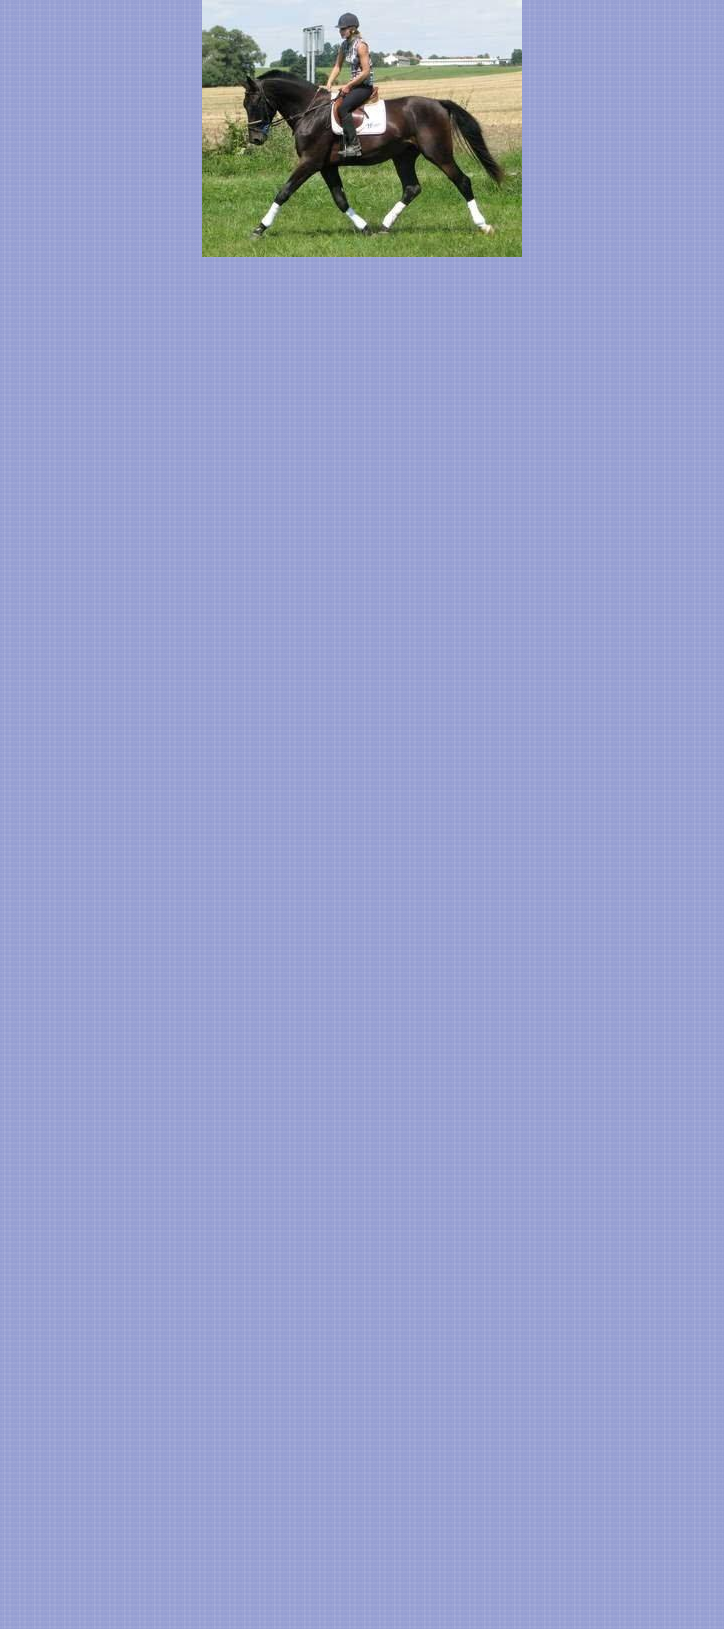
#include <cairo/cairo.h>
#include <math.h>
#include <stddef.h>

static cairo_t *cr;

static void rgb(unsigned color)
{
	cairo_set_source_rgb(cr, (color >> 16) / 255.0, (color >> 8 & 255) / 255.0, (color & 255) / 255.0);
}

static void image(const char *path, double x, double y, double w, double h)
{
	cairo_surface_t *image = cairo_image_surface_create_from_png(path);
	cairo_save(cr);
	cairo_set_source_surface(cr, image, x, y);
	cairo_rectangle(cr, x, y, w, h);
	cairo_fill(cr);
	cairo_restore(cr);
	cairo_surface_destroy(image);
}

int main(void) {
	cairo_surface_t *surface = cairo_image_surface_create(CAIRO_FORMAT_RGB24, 724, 1629);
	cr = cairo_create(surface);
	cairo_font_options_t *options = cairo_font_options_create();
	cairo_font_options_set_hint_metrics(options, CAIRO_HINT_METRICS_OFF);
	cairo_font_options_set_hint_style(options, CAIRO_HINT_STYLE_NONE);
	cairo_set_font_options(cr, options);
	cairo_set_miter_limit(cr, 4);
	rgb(0xffffff);
	cairo_paint(cr);
	image("img/1.png", 0, 0, 724, 1629);
	image("img/2.png", 202, 0, 320, 257);
	cairo_surface_write_to_png(surface, "page.png");
	cairo_font_options_destroy(options);
	cairo_destroy(cr);
	cairo_surface_destroy(surface);
	return 0;
}
